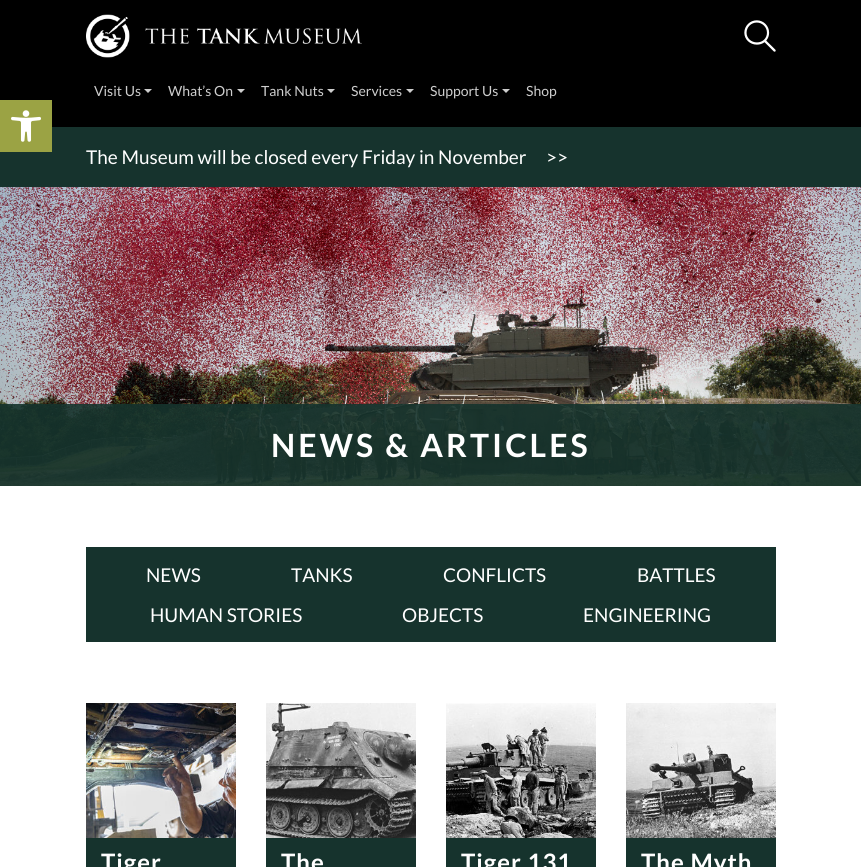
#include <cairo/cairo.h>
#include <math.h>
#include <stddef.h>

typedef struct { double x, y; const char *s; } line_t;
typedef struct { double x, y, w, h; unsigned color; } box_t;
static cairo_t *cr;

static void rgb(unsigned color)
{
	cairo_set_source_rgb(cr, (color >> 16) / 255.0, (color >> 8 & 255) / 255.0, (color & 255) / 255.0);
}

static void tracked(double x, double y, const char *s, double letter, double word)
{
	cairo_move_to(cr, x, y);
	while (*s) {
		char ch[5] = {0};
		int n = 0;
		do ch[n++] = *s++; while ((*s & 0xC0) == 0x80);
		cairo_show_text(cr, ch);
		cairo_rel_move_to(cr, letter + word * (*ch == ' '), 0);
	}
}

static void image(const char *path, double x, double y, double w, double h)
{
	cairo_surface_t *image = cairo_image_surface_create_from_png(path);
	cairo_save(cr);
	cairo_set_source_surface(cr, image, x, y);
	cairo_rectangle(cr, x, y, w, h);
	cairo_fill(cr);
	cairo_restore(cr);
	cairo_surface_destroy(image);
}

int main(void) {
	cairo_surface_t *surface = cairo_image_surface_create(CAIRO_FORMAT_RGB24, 861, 867);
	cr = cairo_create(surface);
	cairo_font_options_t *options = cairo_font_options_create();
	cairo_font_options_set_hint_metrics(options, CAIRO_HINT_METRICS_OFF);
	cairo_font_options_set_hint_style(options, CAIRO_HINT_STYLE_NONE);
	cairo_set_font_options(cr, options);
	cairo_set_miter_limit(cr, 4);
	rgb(0xffffff);
	cairo_paint(cr);
	{
		static const box_t items[] = {
			{0, 0, 861, 127, 0x000000},
			{0, 127, 861, 60, 0x16332d},
			{0, 100, 52, 52, 0x9ba344},
		};
		for (size_t i = 0; i < sizeof items / sizeof *items; i++) {
			rgb(items[i].color);
			cairo_rectangle(cr, items[i].x, items[i].y, items[i].w, items[i].h);
			cairo_fill(cr);
		}
	}
	image("img/1.png", 11, 110, 30, 32);
	image("img/2.png", 86, 14, 276, 44);
	image("img/3.png", 744, 20, 32, 32);
	rgb(0xcecece);
	cairo_new_path(cr);
	cairo_move_to(cr, 144, 89);
	cairo_line_to(cr, 152, 89);
	cairo_line_to(cr, 148, 93);
	cairo_close_path(cr);
	cairo_fill(cr);
	cairo_new_path(cr);
	cairo_move_to(cr, 237, 89);
	cairo_line_to(cr, 245, 89);
	cairo_line_to(cr, 241, 93);
	cairo_close_path(cr);
	cairo_fill(cr);
	cairo_new_path(cr);
	cairo_move_to(cr, 327, 89);
	cairo_line_to(cr, 335, 89);
	cairo_line_to(cr, 331, 93);
	cairo_close_path(cr);
	cairo_fill(cr);
	cairo_new_path(cr);
	cairo_move_to(cr, 406, 89);
	cairo_line_to(cr, 414, 89);
	cairo_line_to(cr, 410, 93);
	cairo_close_path(cr);
	cairo_fill(cr);
	cairo_new_path(cr);
	cairo_move_to(cr, 502, 89);
	cairo_line_to(cr, 510, 89);
	cairo_line_to(cr, 506, 93);
	cairo_close_path(cr);
	cairo_fill(cr);
	image("img/4.png", 0, 187, 861, 299);
	cairo_set_source_rgba(cr, 0.086, 0.2, 0.176, 0.9);
	cairo_rectangle(cr, 0, 404, 861, 82);
	cairo_fill(cr);
	rgb(0x16332d);
	cairo_rectangle(cr, 86, 547, 690, 95);
	cairo_fill(cr);
	image("img/5.png", 86, 703, 150, 135);
	cairo_rectangle(cr, 86, 838, 150, 29);
	cairo_fill(cr);
	image("img/6.png", 266, 703, 150, 135);
	cairo_rectangle(cr, 266, 838, 150, 29);
	cairo_fill(cr);
	image("img/7.png", 446, 703, 150, 135);
	cairo_rectangle(cr, 446, 838, 150, 29);
	cairo_fill(cr);
	image("img/8.png", 626, 703, 150, 135);
	cairo_rectangle(cr, 626, 838, 150, 29);
	cairo_fill(cr);
	cairo_select_font_face(cr, "Lato", CAIRO_FONT_SLANT_NORMAL, CAIRO_FONT_WEIGHT_NORMAL);
	cairo_set_font_size(cr, 14);
	rgb(0xcecece);
	{
		static const line_t items[] = {
			{94, 96, "Visit Us"},
			{168, 96, "What’s On"},
			{261, 96, "Tank Nuts"},
			{351, 96, "Services"},
			{430, 96, "Support Us"},
			{526, 96, "Shop"},
		};
		for (size_t i = 0; i < sizeof items / sizeof *items; i++) {
			cairo_move_to(cr, items[i].x, items[i].y);
			cairo_show_text(cr, items[i].s);
		}
	}
	cairo_set_font_size(cr, 19);
	rgb(0xffffff);
	cairo_move_to(cr, 86, 164);
	cairo_show_text(cr, "The Museum will be closed every Friday in November");
	cairo_move_to(cr, 546, 164);
	cairo_show_text(cr, ">>");
	cairo_select_font_face(cr, "Lato", CAIRO_FONT_SLANT_NORMAL, CAIRO_FONT_WEIGHT_BOLD);
	cairo_set_font_size(cr, 32);
	tracked(271, 457, "NEWS & ARTICLES", 3, 0);
	cairo_select_font_face(cr, "Lato", CAIRO_FONT_SLANT_NORMAL, CAIRO_FONT_WEIGHT_NORMAL);
	cairo_set_font_size(cr, 19);
	{
		static const line_t items[] = {
			{146, 582, "NEWS"},
			{291, 582, "TANKS"},
			{443, 582, "CONFLICTS"},
			{637, 582, "BATTLES"},
			{150, 622, "HUMAN STORIES"},
			{402, 622, "OBJECTS"},
			{583, 622, "ENGINEERING"},
		};
		for (size_t i = 0; i < sizeof items / sizeof *items; i++) {
			cairo_move_to(cr, items[i].x, items[i].y);
			cairo_show_text(cr, items[i].s);
		}
	}
	cairo_select_font_face(cr, "Lato", CAIRO_FONT_SLANT_NORMAL, CAIRO_FONT_WEIGHT_BOLD);
	cairo_set_font_size(cr, 24);
	{
		static const line_t items[] = {
			{101, 871, "Tiger"},
			{281, 871, "The"},
			{461, 871, "Tiger 131"},
			{641, 871, "The Myth"},
		};
		for (size_t i = 0; i < sizeof items / sizeof *items; i++) {
			tracked(items[i].x, items[i].y, items[i].s, 1, 0);
		}
	}
	cairo_surface_write_to_png(surface, "page.png");
	cairo_font_options_destroy(options);
	cairo_destroy(cr);
	cairo_surface_destroy(surface);
	return 0;
}
